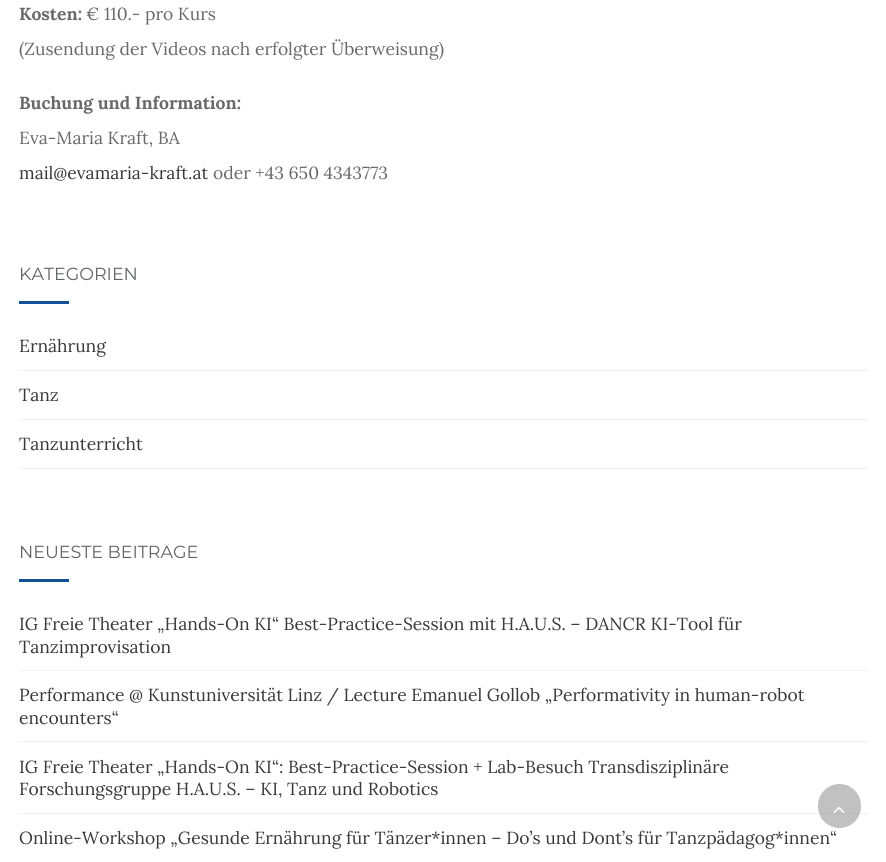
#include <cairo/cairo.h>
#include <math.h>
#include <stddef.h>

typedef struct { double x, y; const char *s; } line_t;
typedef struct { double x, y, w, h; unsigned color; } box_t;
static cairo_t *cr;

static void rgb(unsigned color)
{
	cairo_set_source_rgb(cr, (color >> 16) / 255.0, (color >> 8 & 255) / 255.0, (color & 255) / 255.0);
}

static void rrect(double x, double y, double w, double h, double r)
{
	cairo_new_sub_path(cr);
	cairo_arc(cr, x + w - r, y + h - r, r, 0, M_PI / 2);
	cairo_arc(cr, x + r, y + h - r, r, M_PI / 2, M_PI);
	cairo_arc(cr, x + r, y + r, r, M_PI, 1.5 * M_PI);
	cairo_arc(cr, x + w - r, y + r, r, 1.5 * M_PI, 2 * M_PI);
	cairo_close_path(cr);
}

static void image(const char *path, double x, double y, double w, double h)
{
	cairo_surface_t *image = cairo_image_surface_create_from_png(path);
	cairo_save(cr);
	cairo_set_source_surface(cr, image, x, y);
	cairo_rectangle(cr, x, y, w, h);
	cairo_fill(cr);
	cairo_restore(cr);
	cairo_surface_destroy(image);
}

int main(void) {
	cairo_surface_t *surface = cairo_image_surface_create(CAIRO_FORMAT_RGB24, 886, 862);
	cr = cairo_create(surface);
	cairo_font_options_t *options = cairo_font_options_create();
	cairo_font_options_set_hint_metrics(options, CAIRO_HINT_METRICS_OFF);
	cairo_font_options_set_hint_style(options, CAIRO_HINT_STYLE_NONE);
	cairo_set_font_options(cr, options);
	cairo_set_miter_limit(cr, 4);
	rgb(0xffffff);
	cairo_paint(cr);
	{
		static const box_t items[] = {
			{19, 301, 50, 3, 0x155196},
			{19, 370, 849, 1, 0xf2f2f2},
			{19, 419, 849, 1, 0xf2f2f2},
			{19, 468, 849, 1, 0xf2f2f2},
			{19, 579, 50, 3, 0x155196},
			{19, 670, 849, 1, 0xf2f2f2},
			{19, 741, 849, 1, 0xf2f2f2},
			{19, 813, 849, 1, 0xf2f2f2},
		};
		for (size_t i = 0; i < sizeof items / sizeof *items; i++) {
			rgb(items[i].color);
			cairo_rectangle(cr, items[i].x, items[i].y, items[i].w, items[i].h);
			cairo_fill(cr);
		}
	}
	cairo_set_source_rgba(cr, 0.392, 0.392, 0.392, 0.4);
	rrect(818, 784, 43, 44, 21.5);
	cairo_fill(cr);
	image("img/1.png", 833, 806, 12, 8);
	cairo_select_font_face(cr, "Lora", CAIRO_FONT_SLANT_NORMAL, CAIRO_FONT_WEIGHT_BOLD);
	cairo_set_font_size(cr, 17.5);
	rgb(0x696969);
	cairo_move_to(cr, 19, 20);
	cairo_show_text(cr, "Kosten:");
	cairo_select_font_face(cr, "Lora", CAIRO_FONT_SLANT_NORMAL, CAIRO_FONT_WEIGHT_NORMAL);
	cairo_move_to(cr, 86, 20);
	cairo_show_text(cr, "€ 110.- pro Kurs");
	cairo_move_to(cr, 19, 55);
	cairo_show_text(cr, "(Zusendung der Videos nach erfolgter Überweisung)");
	cairo_select_font_face(cr, "Lora", CAIRO_FONT_SLANT_NORMAL, CAIRO_FONT_WEIGHT_BOLD);
	cairo_move_to(cr, 19, 109);
	cairo_show_text(cr, "Buchung und Information:");
	cairo_select_font_face(cr, "Lora", CAIRO_FONT_SLANT_NORMAL, CAIRO_FONT_WEIGHT_NORMAL);
	cairo_move_to(cr, 19, 144);
	cairo_show_text(cr, "Eva-Maria Kraft, BA");
	rgb(0x393939);
	cairo_move_to(cr, 19, 179);
	cairo_show_text(cr, "mail@evamaria-kraft.at");
	rgb(0x696969);
	cairo_move_to(cr, 213, 179);
	cairo_show_text(cr, "oder +43 650 4343773");
	cairo_select_font_face(cr, "Montserrat", CAIRO_FONT_SLANT_NORMAL, CAIRO_FONT_WEIGHT_NORMAL);
	rgb(0x636467);
	cairo_move_to(cr, 19, 280);
	cairo_show_text(cr, "KATEGORIEN");
	cairo_select_font_face(cr, "Lora", CAIRO_FONT_SLANT_NORMAL, CAIRO_FONT_WEIGHT_NORMAL);
	rgb(0x393939);
	{
		static const line_t items[] = {
			{19, 352, "Ernährung"},
			{19, 401, "Tanz"},
			{19, 450, "Tanzunterricht"},
		};
		for (size_t i = 0; i < sizeof items / sizeof *items; i++) {
			cairo_move_to(cr, items[i].x, items[i].y);
			cairo_show_text(cr, items[i].s);
		}
	}
	cairo_save(cr);
	cairo_rectangle(cr, 19, 544, 849, 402);
	cairo_clip(cr);
	cairo_select_font_face(cr, "Montserrat", CAIRO_FONT_SLANT_NORMAL, CAIRO_FONT_WEIGHT_NORMAL);
	rgb(0x636467);
	cairo_move_to(cr, 19, 558);
	cairo_show_text(cr, "NEUESTE BEITRÄGE");
	cairo_restore(cr);
	{
		static const line_t items[] = {
			{19, 630, "IG Freie Theater „Hands-On KI“ Best-Practice-Session mit H.A.U.S. – DANCR KI-Tool für"},
			{19, 653, "Tanzimprovisation"},
			{19, 701, "Performance @ Kunstuniversität Linz / Lecture Emanuel Gollob „Performativity in human-robot"},
			{19, 724, "encounters“"},
			{19, 773, "IG Freie Theater „Hands-On KI“: Best-Practice-Session + Lab-Besuch Transdisziplinäre"},
			{19, 795, "Forschungsgruppe H.A.U.S. – KI, Tanz und Robotics"},
			{19, 844, "Online-Workshop „Gesunde Ernährung für Tänzer*innen – Do’s und Dont’s für Tanzpädagog*innen“"},
		};
		for (size_t i = 0; i < sizeof items / sizeof *items; i++) {
			cairo_move_to(cr, items[i].x, items[i].y);
			cairo_show_text(cr, items[i].s);
		}
	}
	cairo_surface_write_to_png(surface, "page.png");
	cairo_font_options_destroy(options);
	cairo_destroy(cr);
	cairo_surface_destroy(surface);
	return 0;
}
